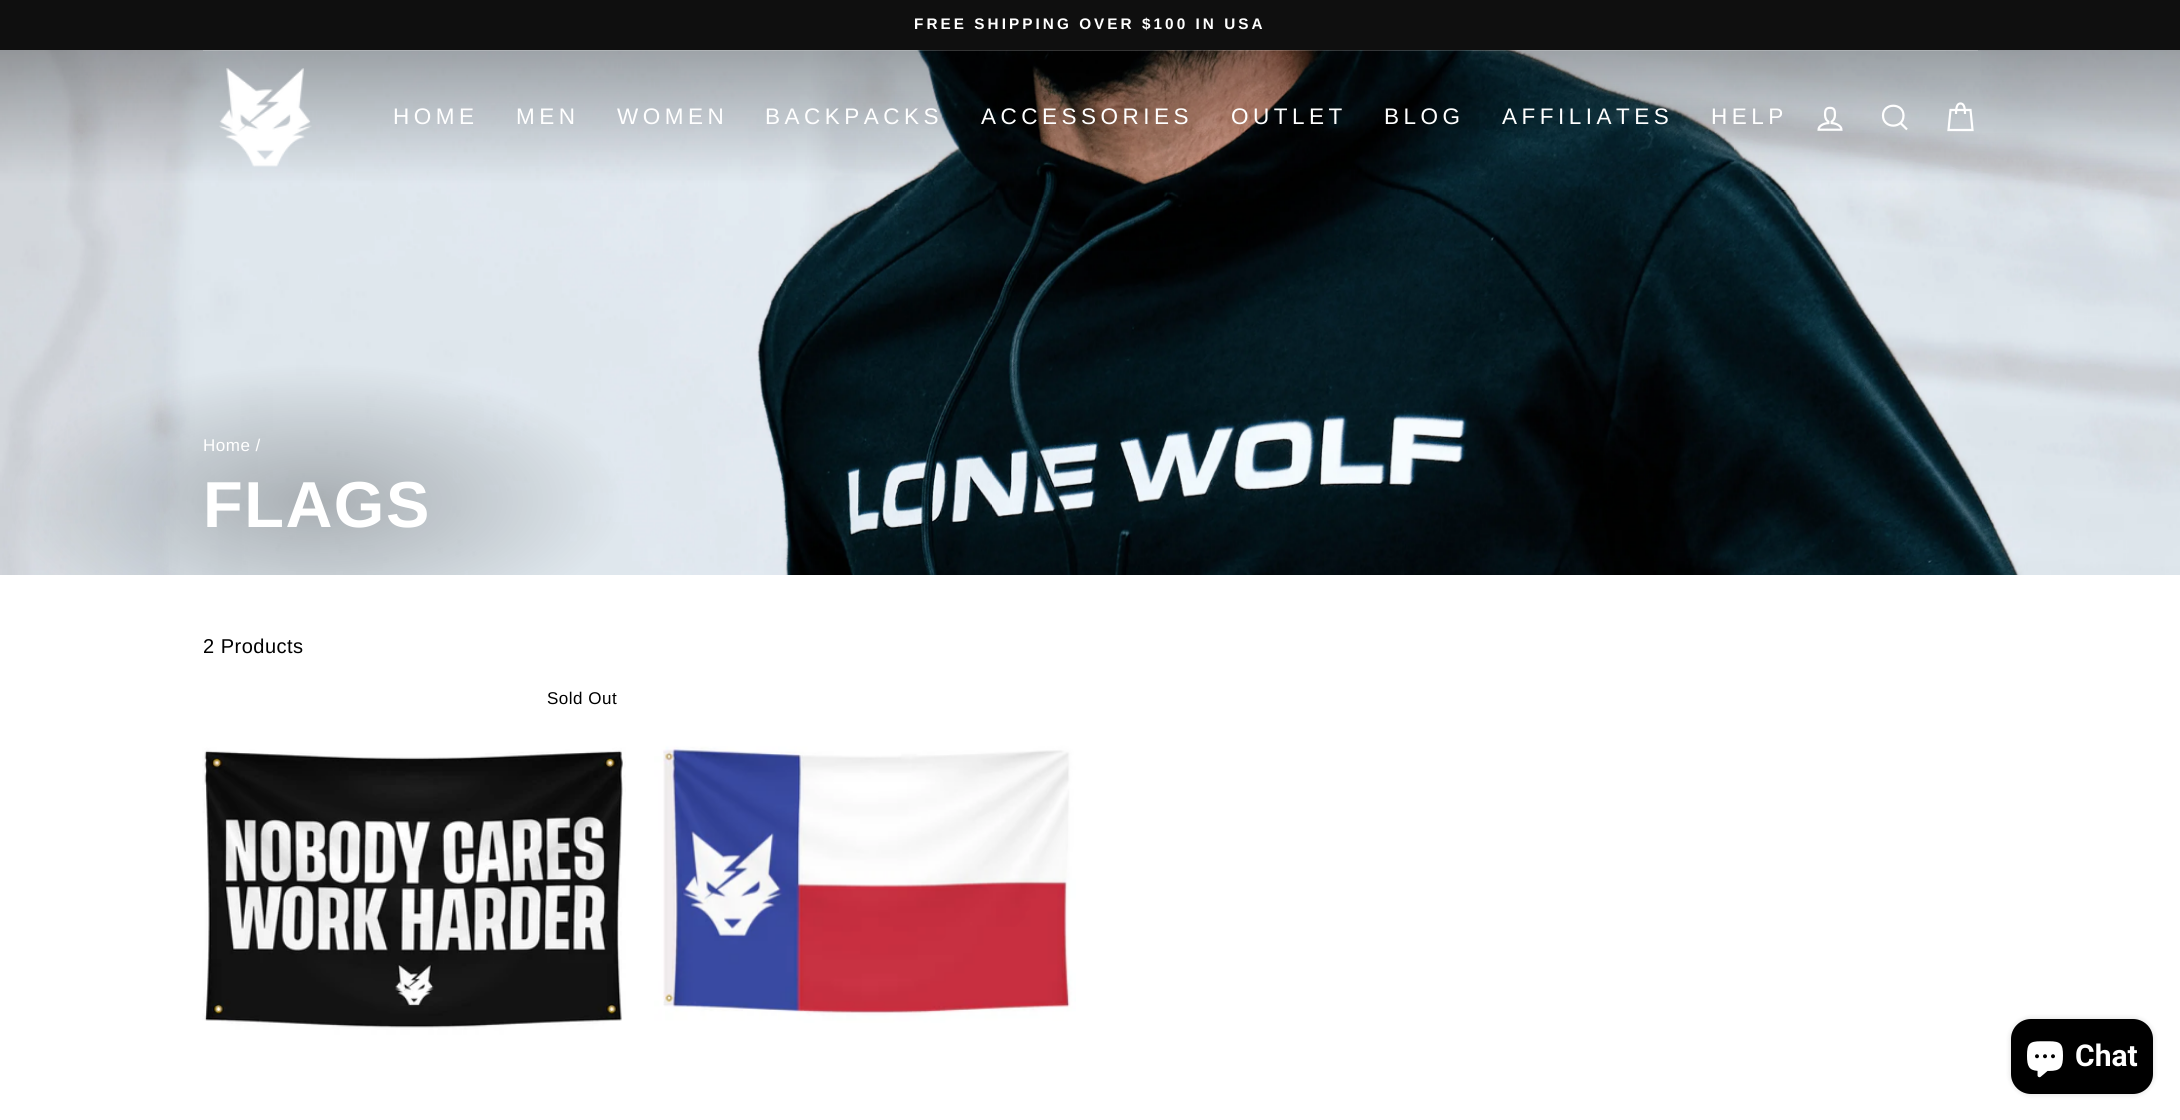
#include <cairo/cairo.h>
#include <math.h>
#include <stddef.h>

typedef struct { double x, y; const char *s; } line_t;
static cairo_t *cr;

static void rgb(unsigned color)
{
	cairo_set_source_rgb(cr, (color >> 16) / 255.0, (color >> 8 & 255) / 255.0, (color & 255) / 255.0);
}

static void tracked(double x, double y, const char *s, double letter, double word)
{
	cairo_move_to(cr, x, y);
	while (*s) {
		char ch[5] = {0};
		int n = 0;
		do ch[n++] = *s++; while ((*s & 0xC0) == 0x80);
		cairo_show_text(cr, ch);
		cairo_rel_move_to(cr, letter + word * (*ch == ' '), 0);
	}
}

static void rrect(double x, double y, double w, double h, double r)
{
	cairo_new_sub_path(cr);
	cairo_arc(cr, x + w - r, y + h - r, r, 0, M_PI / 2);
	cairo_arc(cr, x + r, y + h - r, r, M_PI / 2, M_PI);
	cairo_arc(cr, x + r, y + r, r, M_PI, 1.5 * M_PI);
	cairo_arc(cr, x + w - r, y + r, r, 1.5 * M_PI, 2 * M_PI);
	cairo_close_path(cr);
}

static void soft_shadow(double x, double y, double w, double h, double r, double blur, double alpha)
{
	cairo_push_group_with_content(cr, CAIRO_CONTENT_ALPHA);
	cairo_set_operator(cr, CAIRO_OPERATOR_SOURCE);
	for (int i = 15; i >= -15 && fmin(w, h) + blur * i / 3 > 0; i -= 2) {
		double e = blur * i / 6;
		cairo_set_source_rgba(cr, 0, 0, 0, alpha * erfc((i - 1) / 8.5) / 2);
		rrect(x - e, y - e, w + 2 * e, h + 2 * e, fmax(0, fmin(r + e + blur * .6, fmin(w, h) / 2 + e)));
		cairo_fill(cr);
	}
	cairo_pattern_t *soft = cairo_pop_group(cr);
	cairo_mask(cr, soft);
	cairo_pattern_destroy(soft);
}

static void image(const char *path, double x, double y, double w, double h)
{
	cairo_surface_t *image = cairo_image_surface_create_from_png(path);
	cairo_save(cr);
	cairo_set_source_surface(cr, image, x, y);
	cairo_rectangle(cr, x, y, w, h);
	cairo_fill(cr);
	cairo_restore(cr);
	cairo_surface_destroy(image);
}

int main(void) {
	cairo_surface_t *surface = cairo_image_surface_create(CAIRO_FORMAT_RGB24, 2180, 1120);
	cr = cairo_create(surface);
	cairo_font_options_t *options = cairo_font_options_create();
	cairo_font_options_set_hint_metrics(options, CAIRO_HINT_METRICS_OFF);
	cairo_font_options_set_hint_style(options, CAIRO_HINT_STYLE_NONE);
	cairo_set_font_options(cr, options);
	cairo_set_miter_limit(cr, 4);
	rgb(0xffffff);
	cairo_paint(cr);
	rgb(0x0f0f0f);
	cairo_rectangle(cr, 0, 0, 2180, 50);
	cairo_fill(cr);
	image("img/3.png", 0, 50, 2180, 525);
	cairo_set_source_rgba(cr, 1, 1, 1, 0.2);
	cairo_rectangle(cr, 203, 50, 1775, 1);
	cairo_fill(cr);
	image("img/1.png", 219, 68, 93, 99);
	image("img/2.png", 1817, 106, 26, 25);
	cairo_new_path(cr);
	cairo_move_to(cr, 1903.5, 115.5);
	cairo_curve_to(cr, 1903.5, 129, 1883, 129, 1883, 115.5);
	cairo_curve_to(cr, 1883, 102.5, 1903.5, 102.5, 1903.5, 115.5);
	cairo_close_path(cr);
	cairo_move_to(cr, 1907, 129.5);
	cairo_line_to(cr, 1900.5, 123);
	rgb(0xffffff);
	cairo_set_line_width(cr, 2.2);
	cairo_stroke(cr);
	cairo_new_path(cr);
	cairo_move_to(cr, 1956, 114);
	cairo_curve_to(cr, 1956, 105.5, 1958, 103.5, 1960.5, 103.5);
	cairo_curve_to(cr, 1963, 103.5, 1965, 105.5, 1965, 114);
	cairo_move_to(cr, 1950.5, 110);
	cairo_line_to(cr, 1970.5, 110);
	cairo_line_to(cr, 1972.5, 130);
	cairo_line_to(cr, 1948.5, 130);
	cairo_close_path(cr);
	cairo_stroke(cr);
	image("img/4.png", 202, 681, 424, 424);
	image("img/5.png", 654, 681, 422, 424);
	rgb(0x000000);
	soft_shadow(2011, 1019, 142, 75, 20, 3, 0.15);
	rgb(0x000000);
	rrect(2011, 1019, 142, 75, 20);
	cairo_fill(cr);
	image("img/6.png", 2027, 1041, 36, 37);
	cairo_select_font_face(cr, "Arimo", CAIRO_FONT_SLANT_NORMAL, CAIRO_FONT_WEIGHT_BOLD);
	cairo_set_font_size(cr, 15.3);
	rgb(0xffffff);
	tracked(914, 29, "FREE SHIPPING OVER $100 IN USA", 3.05, 0);
	cairo_select_font_face(cr, "Arimo", CAIRO_FONT_SLANT_NORMAL, CAIRO_FONT_WEIGHT_NORMAL);
	cairo_set_font_size(cr, 22.5);
	{
		static const line_t items[] = {
			{393, 124, "HOME"},
			{516, 124, "MEN"},
			{617, 124, "WOMEN"},
			{765, 124, "BACKPACKS"},
			{981, 124, "ACCESSORIES"},
			{1231, 124, "OUTLET"},
			{1384, 124, "BLOG"},
			{1502, 124, "AFFILIATES"},
			{1711, 124, "HELP"},
		};
		for (size_t i = 0; i < sizeof items / sizeof *items; i++) {
			tracked(items[i].x, items[i].y, items[i].s, 4.5, 0);
		}
	}
	cairo_set_font_size(cr, 17);
	tracked(203, 451, "Home /", 0.5, 0);
	cairo_select_font_face(cr, "Arimo", CAIRO_FONT_SLANT_NORMAL, CAIRO_FONT_WEIGHT_BOLD);
	cairo_set_font_size(cr, 65);
	tracked(203, 527, "FLAGS", 1.5, 0);
	cairo_select_font_face(cr, "Arimo", CAIRO_FONT_SLANT_NORMAL, CAIRO_FONT_WEIGHT_NORMAL);
	cairo_set_font_size(cr, 20);
	rgb(0x000000);
	tracked(203, 653, "2 Products", 0.5, 0);
	cairo_set_font_size(cr, 17);
	tracked(547, 704, "Sold Out", 0.5, 0);
	cairo_select_font_face(cr, "Roboto", CAIRO_FONT_SLANT_NORMAL, CAIRO_FONT_WEIGHT_BOLD);
	cairo_set_font_size(cr, 30);
	rgb(0xffffff);
	cairo_move_to(cr, 2075, 1066);
	cairo_show_text(cr, "Chat");
	cairo_surface_write_to_png(surface, "page.png");
	cairo_font_options_destroy(options);
	cairo_destroy(cr);
	cairo_surface_destroy(surface);
	return 0;
}
